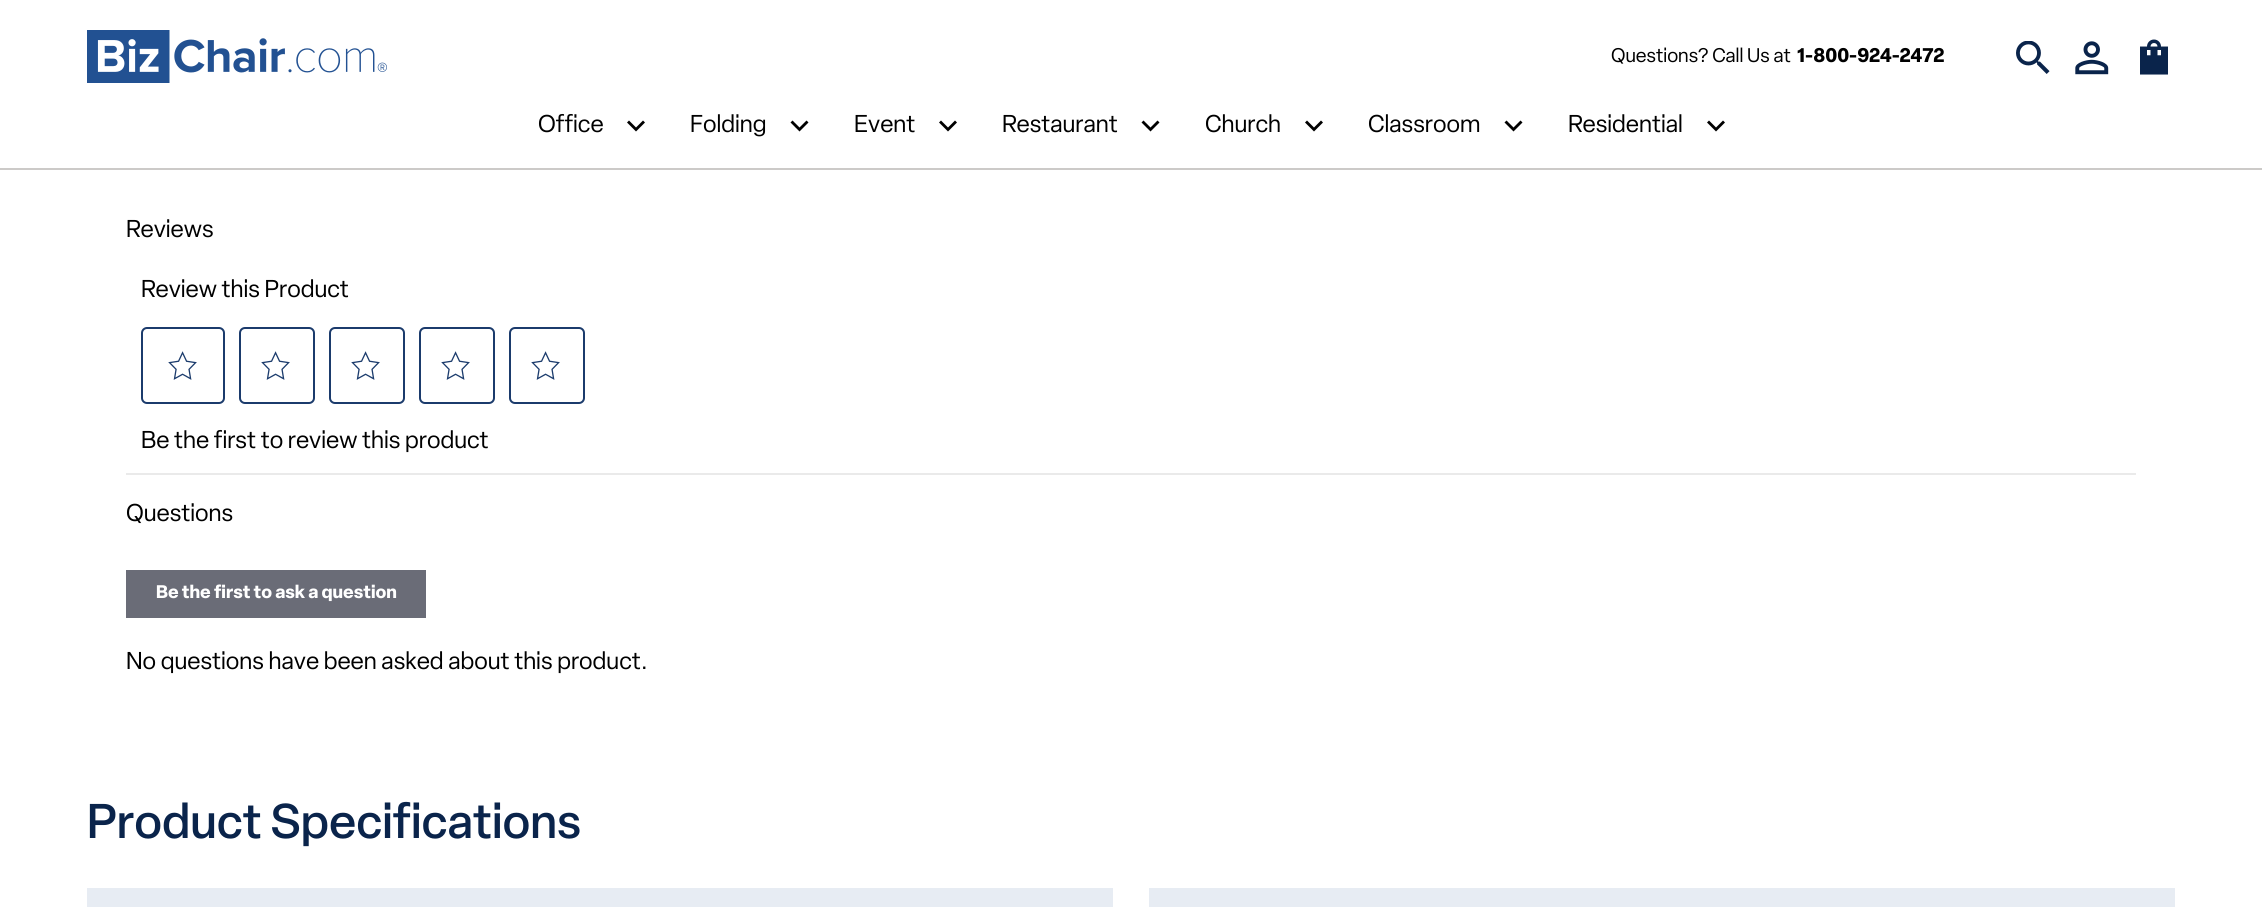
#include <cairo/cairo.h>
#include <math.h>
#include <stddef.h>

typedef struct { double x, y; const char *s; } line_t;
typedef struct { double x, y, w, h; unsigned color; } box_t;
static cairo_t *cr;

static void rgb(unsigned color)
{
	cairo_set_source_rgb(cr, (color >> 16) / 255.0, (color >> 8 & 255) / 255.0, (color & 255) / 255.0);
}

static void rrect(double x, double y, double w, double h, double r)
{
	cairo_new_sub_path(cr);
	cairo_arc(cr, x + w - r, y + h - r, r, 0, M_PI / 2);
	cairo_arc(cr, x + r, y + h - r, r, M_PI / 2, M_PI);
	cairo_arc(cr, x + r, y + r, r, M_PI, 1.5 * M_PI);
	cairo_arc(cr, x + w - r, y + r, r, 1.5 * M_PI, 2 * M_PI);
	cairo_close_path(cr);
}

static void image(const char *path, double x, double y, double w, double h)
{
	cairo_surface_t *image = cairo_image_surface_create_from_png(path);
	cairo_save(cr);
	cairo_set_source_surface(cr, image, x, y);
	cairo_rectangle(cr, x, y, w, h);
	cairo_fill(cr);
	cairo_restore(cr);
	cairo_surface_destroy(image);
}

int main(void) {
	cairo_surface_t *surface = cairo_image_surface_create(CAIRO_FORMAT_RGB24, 2262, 907);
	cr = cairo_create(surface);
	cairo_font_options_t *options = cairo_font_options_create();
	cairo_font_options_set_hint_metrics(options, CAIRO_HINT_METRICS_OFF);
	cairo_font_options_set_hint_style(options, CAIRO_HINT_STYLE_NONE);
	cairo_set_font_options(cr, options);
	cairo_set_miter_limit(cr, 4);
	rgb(0xffffff);
	cairo_paint(cr);
	rgb(0xcccac8);
	cairo_rectangle(cr, 0, 168, 2262, 2);
	cairo_fill(cr);
	image("img/1.png", 87, 30, 300, 53);
	image("img/2.png", 2016, 41, 34, 33);
	image("img/3.png", 2075, 41, 34, 34);
	image("img/4.png", 2140, 39, 28, 36);
	rgb(0x000000);
	cairo_new_path(cr);
	cairo_move_to(cr, 643, 120.5);
	cairo_line_to(cr, 636, 127.5);
	cairo_line_to(cr, 629, 120.5);
	cairo_line_to(cr, 627, 122.5);
	cairo_line_to(cr, 636, 131.5);
	cairo_line_to(cr, 645, 122.5);
	cairo_close_path(cr);
	cairo_fill(cr);
	cairo_new_path(cr);
	cairo_move_to(cr, 806.5, 120.5);
	cairo_line_to(cr, 799.5, 127.5);
	cairo_line_to(cr, 792.5, 120.5);
	cairo_line_to(cr, 790.5, 122.5);
	cairo_line_to(cr, 799.5, 131.5);
	cairo_line_to(cr, 808.5, 122.5);
	cairo_close_path(cr);
	cairo_fill(cr);
	cairo_new_path(cr);
	cairo_move_to(cr, 955, 120.5);
	cairo_line_to(cr, 948, 127.5);
	cairo_line_to(cr, 941, 120.5);
	cairo_line_to(cr, 939, 122.5);
	cairo_line_to(cr, 948, 131.5);
	cairo_line_to(cr, 957, 122.5);
	cairo_close_path(cr);
	cairo_fill(cr);
	cairo_new_path(cr);
	cairo_move_to(cr, 1157.5, 120.5);
	cairo_line_to(cr, 1150.5, 127.5);
	cairo_line_to(cr, 1143.5, 120.5);
	cairo_line_to(cr, 1141.5, 122.5);
	cairo_line_to(cr, 1150.5, 131.5);
	cairo_line_to(cr, 1159.5, 122.5);
	cairo_close_path(cr);
	cairo_fill(cr);
	cairo_new_path(cr);
	cairo_move_to(cr, 1321, 120.5);
	cairo_line_to(cr, 1314, 127.5);
	cairo_line_to(cr, 1307, 120.5);
	cairo_line_to(cr, 1305, 122.5);
	cairo_line_to(cr, 1314, 131.5);
	cairo_line_to(cr, 1323, 122.5);
	cairo_close_path(cr);
	cairo_fill(cr);
	cairo_new_path(cr);
	cairo_move_to(cr, 1520.5, 120.5);
	cairo_line_to(cr, 1513.5, 127.5);
	cairo_line_to(cr, 1506.5, 120.5);
	cairo_line_to(cr, 1504.5, 122.5);
	cairo_line_to(cr, 1513.5, 131.5);
	cairo_line_to(cr, 1522.5, 122.5);
	cairo_close_path(cr);
	cairo_fill(cr);
	cairo_new_path(cr);
	cairo_move_to(cr, 1723, 120.5);
	cairo_line_to(cr, 1716, 127.5);
	cairo_line_to(cr, 1709, 120.5);
	cairo_line_to(cr, 1707, 122.5);
	cairo_line_to(cr, 1716, 131.5);
	cairo_line_to(cr, 1725, 122.5);
	cairo_close_path(cr);
	cairo_fill(cr);
	rgb(0xeaeaea);
	cairo_rectangle(cr, 126, 473, 2010, 2);
	cairo_fill(cr);
	rrect(142, 328, 82, 75, 5);
	rgb(0x1b3b6c);
	cairo_stroke(cr);
	image("img/5.png", 168, 351, 29, 29);
	rrect(240, 328, 74, 75, 5);
	cairo_stroke(cr);
	image("img/5.png", 261, 351, 29, 29);
	rrect(330, 328, 74, 75, 5);
	cairo_stroke(cr);
	image("img/5.png", 351, 351, 29, 29);
	rrect(420, 328, 74, 75, 5);
	cairo_stroke(cr);
	image("img/5.png", 441, 351, 29, 29);
	rrect(510, 328, 74, 75, 5);
	cairo_stroke(cr);
	image("img/5.png", 531, 351, 29, 29);
	{
		static const box_t items[] = {
			{126, 570, 300, 48, 0x6a6c77},
			{87, 888, 1026, 19, 0xe7ecf3},
			{1149, 888, 1026, 19, 0xe7ecf3},
		};
		for (size_t i = 0; i < sizeof items / sizeof *items; i++) {
			rgb(items[i].color);
			cairo_rectangle(cr, items[i].x, items[i].y, items[i].w, items[i].h);
			cairo_fill(cr);
		}
	}
	cairo_select_font_face(cr, "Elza", CAIRO_FONT_SLANT_NORMAL, CAIRO_FONT_WEIGHT_NORMAL);
	cairo_set_font_size(cr, 19.5);
	rgb(0x000000);
	cairo_move_to(cr, 1611, 62);
	cairo_show_text(cr, "Questions? Call Us at");
	cairo_select_font_face(cr, "Elza", CAIRO_FONT_SLANT_NORMAL, CAIRO_FONT_WEIGHT_BOLD);
	cairo_move_to(cr, 1797, 62);
	cairo_show_text(cr, "1-800-924-2472");
	cairo_select_font_face(cr, "Elza", CAIRO_FONT_SLANT_NORMAL, CAIRO_FONT_WEIGHT_NORMAL);
	cairo_set_font_size(cr, 24);
	{
		static const line_t items[] = {
			{538, 132, "Office"},
			{690, 132, "Folding"},
			{854, 132, "Event"},
			{1002, 132, "Restaurant"},
			{1205, 132, "Church"},
			{1368, 132, "Classroom"},
			{1568, 132, "Residential"},
			{126, 237, "Reviews"},
			{141, 297, "Review this Product"},
			{141, 448, "Be the first to review this product"},
			{126, 521, "Questions"},
		};
		for (size_t i = 0; i < sizeof items / sizeof *items; i++) {
			cairo_move_to(cr, items[i].x, items[i].y);
			cairo_show_text(cr, items[i].s);
		}
	}
	cairo_select_font_face(cr, "Elza", CAIRO_FONT_SLANT_NORMAL, CAIRO_FONT_WEIGHT_BOLD);
	cairo_set_font_size(cr, 18);
	rgb(0xffffff);
	cairo_move_to(cr, 156, 598);
	cairo_show_text(cr, "Be the first to ask a question");
	cairo_select_font_face(cr, "Elza", CAIRO_FONT_SLANT_NORMAL, CAIRO_FONT_WEIGHT_NORMAL);
	cairo_set_font_size(cr, 24);
	rgb(0x000000);
	cairo_move_to(cr, 126, 669);
	cairo_show_text(cr, "No questions have been asked about this product.");
	cairo_select_font_face(cr, "Elza Medium", CAIRO_FONT_SLANT_NORMAL, CAIRO_FONT_WEIGHT_NORMAL);
	cairo_set_font_size(cr, 48);
	rgb(0x0a244b);
	cairo_move_to(cr, 87, 838);
	cairo_show_text(cr, "Product Specifications");
	cairo_surface_write_to_png(surface, "page.png");
	cairo_font_options_destroy(options);
	cairo_destroy(cr);
	cairo_surface_destroy(surface);
	return 0;
}
